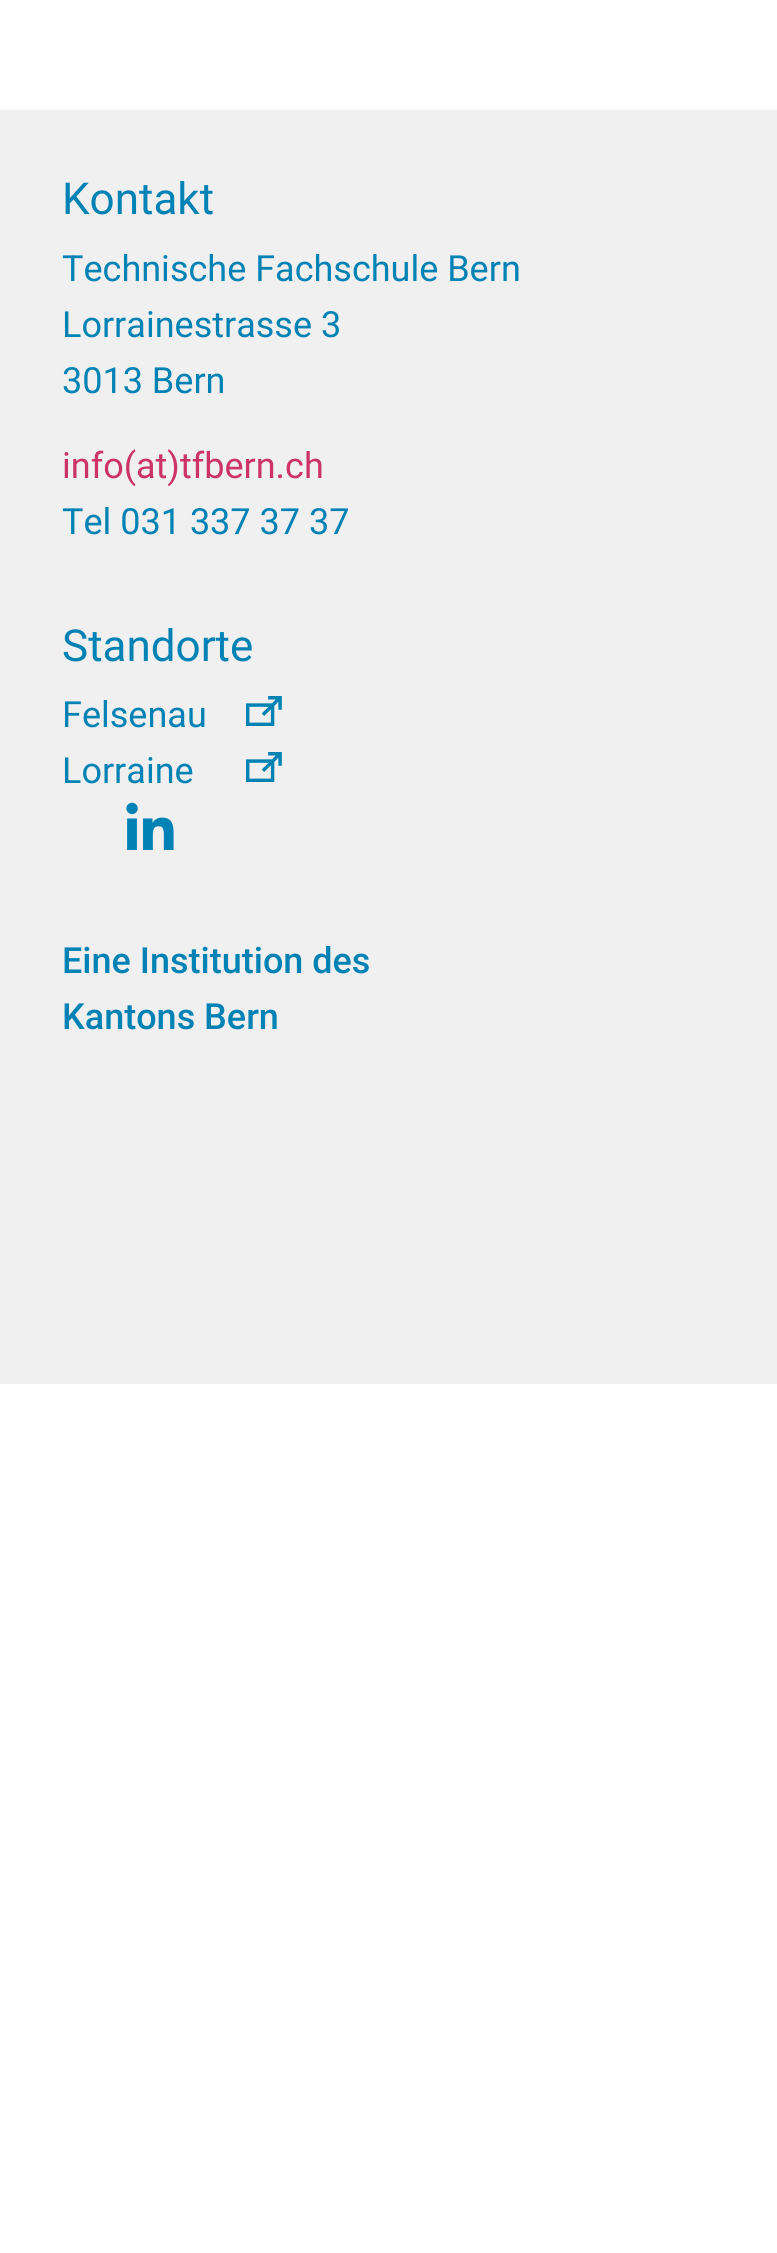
#include <cairo/cairo.h>
#include <math.h>
#include <stddef.h>

typedef struct { double x, y; const char *s; } line_t;
static cairo_t *cr;

static void rgb(unsigned color)
{
	cairo_set_source_rgb(cr, (color >> 16) / 255.0, (color >> 8 & 255) / 255.0, (color & 255) / 255.0);
}

static void image(const char *path, double x, double y, double w, double h)
{
	cairo_surface_t *image = cairo_image_surface_create_from_png(path);
	cairo_save(cr);
	cairo_set_source_surface(cr, image, x, y);
	cairo_rectangle(cr, x, y, w, h);
	cairo_fill(cr);
	cairo_restore(cr);
	cairo_surface_destroy(image);
}

int main(void) {
	cairo_surface_t *surface = cairo_image_surface_create(CAIRO_FORMAT_RGB24, 777, 2253);
	cr = cairo_create(surface);
	cairo_font_options_t *options = cairo_font_options_create();
	cairo_font_options_set_hint_metrics(options, CAIRO_HINT_METRICS_OFF);
	cairo_font_options_set_hint_style(options, CAIRO_HINT_STYLE_NONE);
	cairo_set_font_options(cr, options);
	cairo_set_miter_limit(cr, 4);
	rgb(0xffffff);
	cairo_paint(cr);
	rgb(0xf0f0f0);
	cairo_rectangle(cr, 0, 110, 777, 1274);
	cairo_fill(cr);
	image("img/1.png", 246, 696, 36, 30);
	image("img/2.png", 246, 752, 36, 30);
	image("img/3.png", 126, 802, 48, 48);
	cairo_select_font_face(cr, "Roboto", CAIRO_FONT_SLANT_NORMAL, CAIRO_FONT_WEIGHT_NORMAL);
	cairo_set_font_size(cr, 44);
	rgb(0x0182b4);
	cairo_move_to(cr, 62, 214);
	cairo_show_text(cr, "Kontakt");
	cairo_set_font_size(cr, 36);
	{
		static const line_t items[] = {
			{62, 281, "Technische Fachschule Bern"},
			{62, 337, "Lorrainestrasse 3"},
			{62, 393, "3013 Bern"},
		};
		for (size_t i = 0; i < sizeof items / sizeof *items; i++) {
			cairo_move_to(cr, items[i].x, items[i].y);
			cairo_show_text(cr, items[i].s);
		}
	}
	rgb(0xcc3366);
	cairo_move_to(cr, 62, 478);
	cairo_show_text(cr, "info(at)tfbern.ch");
	rgb(0x0182b4);
	cairo_move_to(cr, 62, 534);
	cairo_show_text(cr, "Tel 031 337 37 37");
	cairo_set_font_size(cr, 44);
	cairo_move_to(cr, 62, 661);
	cairo_show_text(cr, "Standorte");
	cairo_set_font_size(cr, 36);
	cairo_move_to(cr, 62, 727);
	cairo_show_text(cr, "Felsenau");
	cairo_move_to(cr, 62, 783);
	cairo_show_text(cr, "Lorraine");
	cairo_select_font_face(cr, "Roboto Medium", CAIRO_FONT_SLANT_NORMAL, CAIRO_FONT_WEIGHT_NORMAL);
	cairo_move_to(cr, 62, 973);
	cairo_show_text(cr, "Eine Institution des");
	cairo_move_to(cr, 62, 1029);
	cairo_show_text(cr, "Kantons Bern");
	cairo_surface_write_to_png(surface, "page.png");
	cairo_font_options_destroy(options);
	cairo_destroy(cr);
	cairo_surface_destroy(surface);
	return 0;
}
